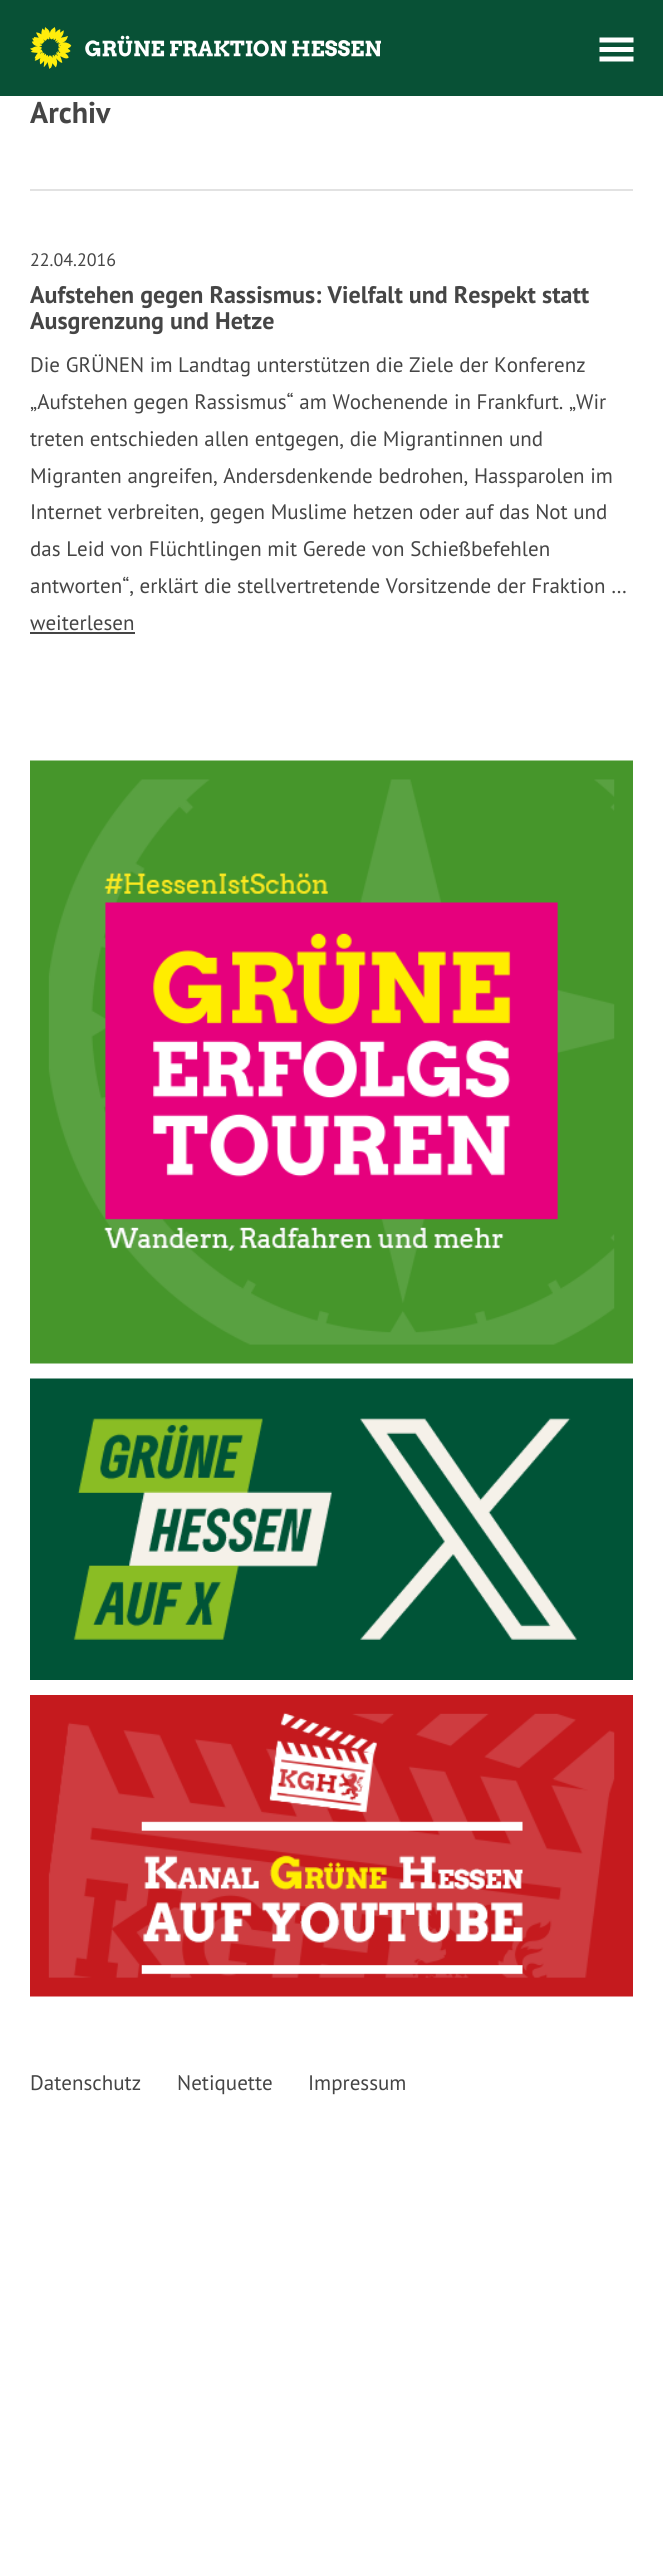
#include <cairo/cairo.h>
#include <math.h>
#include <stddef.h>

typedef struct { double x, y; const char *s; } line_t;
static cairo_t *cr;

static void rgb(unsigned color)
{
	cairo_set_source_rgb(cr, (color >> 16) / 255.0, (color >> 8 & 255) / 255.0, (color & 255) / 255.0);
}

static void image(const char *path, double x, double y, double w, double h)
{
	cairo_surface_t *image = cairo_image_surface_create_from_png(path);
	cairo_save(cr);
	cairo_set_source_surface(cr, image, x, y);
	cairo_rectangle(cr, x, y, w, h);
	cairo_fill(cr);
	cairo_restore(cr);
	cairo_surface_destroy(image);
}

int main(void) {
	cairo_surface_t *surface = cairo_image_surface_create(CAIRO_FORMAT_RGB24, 663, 2570);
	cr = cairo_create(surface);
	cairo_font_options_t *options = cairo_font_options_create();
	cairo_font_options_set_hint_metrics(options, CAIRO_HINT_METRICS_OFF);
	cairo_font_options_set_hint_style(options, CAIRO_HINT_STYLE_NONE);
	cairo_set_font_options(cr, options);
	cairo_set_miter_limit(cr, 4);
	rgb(0xffffff);
	cairo_paint(cr);
	rgb(0x085136);
	cairo_rectangle(cr, 0, 0, 663, 96);
	cairo_fill(cr);
	image("img/1.png", 30, 27, 351, 42);
	rgb(0xffffff);
	cairo_new_path(cr);
	cairo_move_to(cr, 599.5, 61.5);
	cairo_line_to(cr, 633.5, 61.5);
	cairo_line_to(cr, 633.5, 56.5);
	cairo_line_to(cr, 599.5, 56.5);
	cairo_close_path(cr);
	cairo_move_to(cr, 599.5, 37.5);
	cairo_line_to(cr, 599.5, 42.5);
	cairo_line_to(cr, 633.5, 42.5);
	cairo_line_to(cr, 633.5, 37.5);
	cairo_close_path(cr);
	cairo_move_to(cr, 599.5, 52);
	cairo_line_to(cr, 633.5, 52);
	cairo_line_to(cr, 633.5, 47);
	cairo_line_to(cr, 599.5, 47);
	cairo_close_path(cr);
	cairo_fill(cr);
	rgb(0xe2e2e2);
	cairo_rectangle(cr, 30, 189, 603, 2);
	cairo_fill(cr);
	rgb(0x454545);
	cairo_rectangle(cr, 30, 632, 105, 2);
	cairo_fill(cr);
	image("img/2.png", 30, 760, 603, 604);
	image("img/3.png", 30, 1378, 603, 302);
	image("img/4.png", 30, 1695, 603, 302);
	cairo_select_font_face(cr, "PT Sans", CAIRO_FONT_SLANT_NORMAL, CAIRO_FONT_WEIGHT_BOLD);
	cairo_set_font_size(cr, 30);
	cairo_move_to(cr, 30, 123);
	cairo_show_text(cr, "Archiv");
	cairo_select_font_face(cr, "PT Sans", CAIRO_FONT_SLANT_NORMAL, CAIRO_FONT_WEIGHT_NORMAL);
	cairo_set_font_size(cr, 18);
	cairo_move_to(cr, 30, 266);
	cairo_show_text(cr, "22.04.2016");
	cairo_select_font_face(cr, "PT Sans", CAIRO_FONT_SLANT_NORMAL, CAIRO_FONT_WEIGHT_BOLD);
	cairo_set_font_size(cr, 24);
	cairo_move_to(cr, 30, 303);
	cairo_show_text(cr, "Aufstehen gegen Rassismus: Vielfalt und Respekt statt");
	cairo_move_to(cr, 30, 329);
	cairo_show_text(cr, "Ausgrenzung und Hetze");
	cairo_select_font_face(cr, "PT Sans", CAIRO_FONT_SLANT_NORMAL, CAIRO_FONT_WEIGHT_NORMAL);
	cairo_set_font_size(cr, 21);
	{
		static const line_t items[] = {
			{30, 372, "Die GRÜNEN im Landtag unterstützen die Ziele der Konferenz"},
			{30, 409, "„Aufstehen gegen Rassismus“ am Wochenende in Frankfurt. „Wir"},
			{30, 446, "treten entschieden allen entgegen, die Migrantinnen und"},
			{30, 483, "Migranten angreifen, Andersdenkende bedrohen, Hassparolen im"},
			{30, 519, "Internet verbreiten, gegen Muslime hetzen oder auf das Not und"},
			{30, 556, "das Leid von Flüchtlingen mit Gerede von Schießbefehlen"},
			{30, 593, "antworten“, erklärt die stellvertretende Vorsitzende der Fraktion …"},
			{30, 630, "weiterlesen"},
			{30, 2090, "Datenschutz"},
			{177, 2090, "Netiquette"},
			{308, 2090, "Impressum"},
		};
		for (size_t i = 0; i < sizeof items / sizeof *items; i++) {
			cairo_move_to(cr, items[i].x, items[i].y);
			cairo_show_text(cr, items[i].s);
		}
	}
	cairo_surface_write_to_png(surface, "page.png");
	cairo_font_options_destroy(options);
	cairo_destroy(cr);
	cairo_surface_destroy(surface);
	return 0;
}
